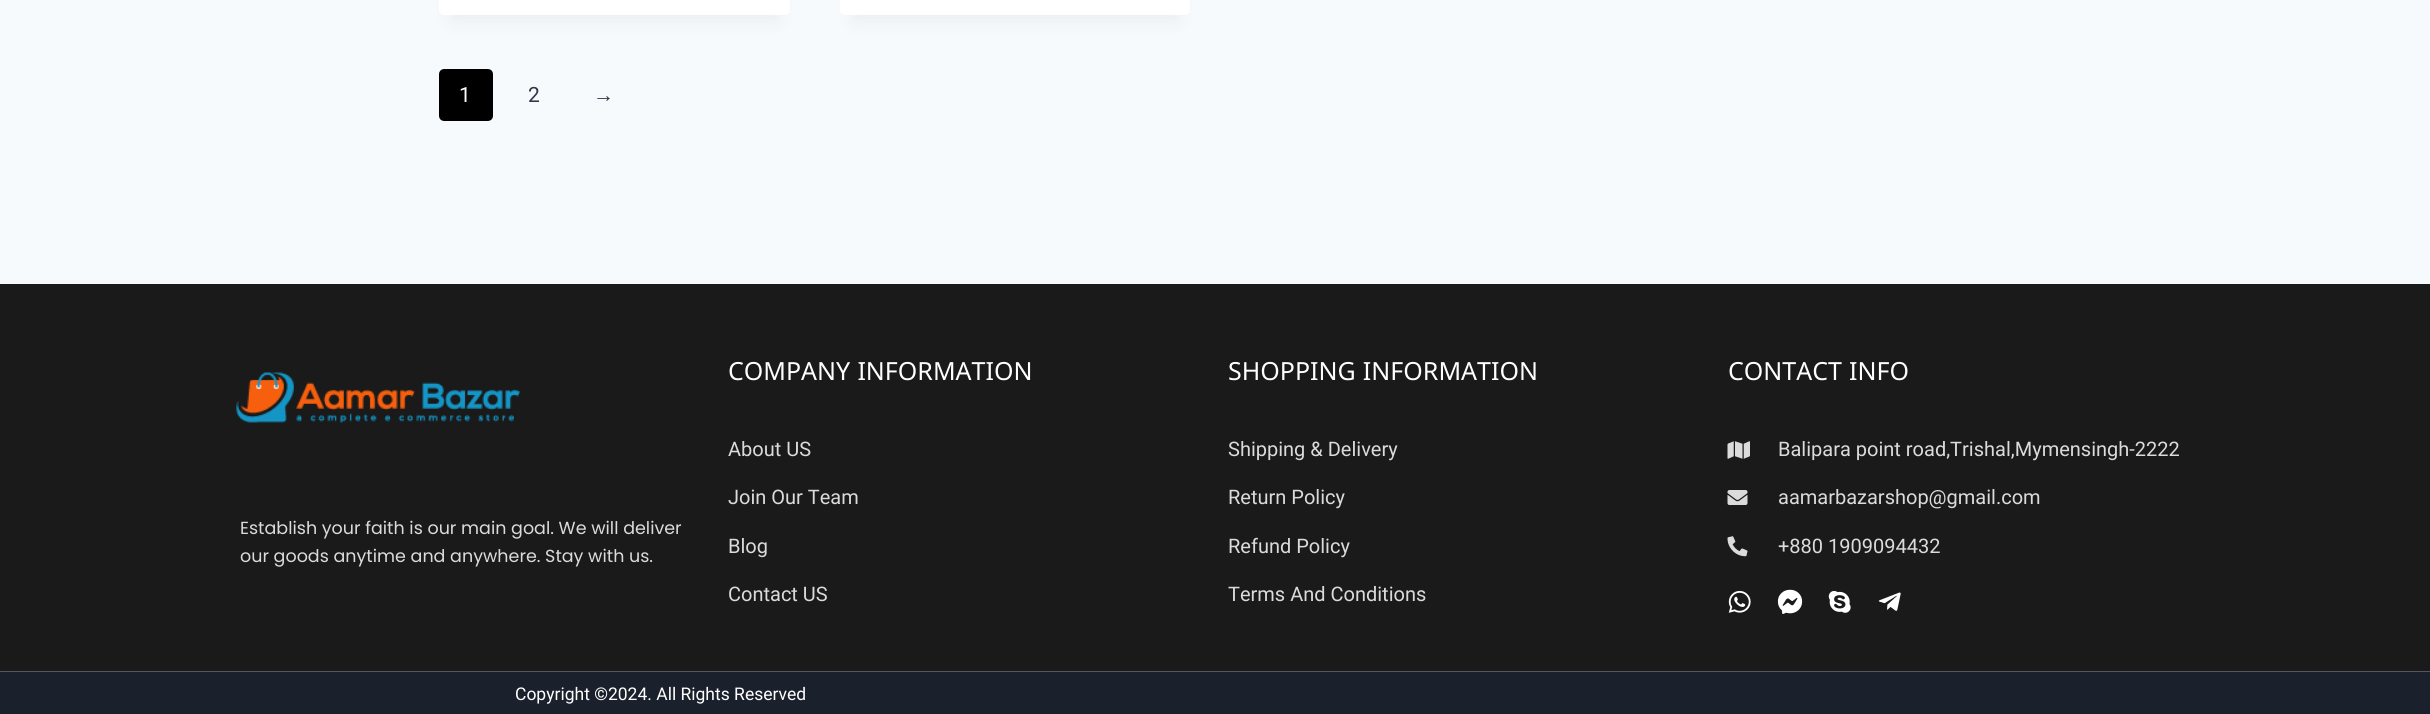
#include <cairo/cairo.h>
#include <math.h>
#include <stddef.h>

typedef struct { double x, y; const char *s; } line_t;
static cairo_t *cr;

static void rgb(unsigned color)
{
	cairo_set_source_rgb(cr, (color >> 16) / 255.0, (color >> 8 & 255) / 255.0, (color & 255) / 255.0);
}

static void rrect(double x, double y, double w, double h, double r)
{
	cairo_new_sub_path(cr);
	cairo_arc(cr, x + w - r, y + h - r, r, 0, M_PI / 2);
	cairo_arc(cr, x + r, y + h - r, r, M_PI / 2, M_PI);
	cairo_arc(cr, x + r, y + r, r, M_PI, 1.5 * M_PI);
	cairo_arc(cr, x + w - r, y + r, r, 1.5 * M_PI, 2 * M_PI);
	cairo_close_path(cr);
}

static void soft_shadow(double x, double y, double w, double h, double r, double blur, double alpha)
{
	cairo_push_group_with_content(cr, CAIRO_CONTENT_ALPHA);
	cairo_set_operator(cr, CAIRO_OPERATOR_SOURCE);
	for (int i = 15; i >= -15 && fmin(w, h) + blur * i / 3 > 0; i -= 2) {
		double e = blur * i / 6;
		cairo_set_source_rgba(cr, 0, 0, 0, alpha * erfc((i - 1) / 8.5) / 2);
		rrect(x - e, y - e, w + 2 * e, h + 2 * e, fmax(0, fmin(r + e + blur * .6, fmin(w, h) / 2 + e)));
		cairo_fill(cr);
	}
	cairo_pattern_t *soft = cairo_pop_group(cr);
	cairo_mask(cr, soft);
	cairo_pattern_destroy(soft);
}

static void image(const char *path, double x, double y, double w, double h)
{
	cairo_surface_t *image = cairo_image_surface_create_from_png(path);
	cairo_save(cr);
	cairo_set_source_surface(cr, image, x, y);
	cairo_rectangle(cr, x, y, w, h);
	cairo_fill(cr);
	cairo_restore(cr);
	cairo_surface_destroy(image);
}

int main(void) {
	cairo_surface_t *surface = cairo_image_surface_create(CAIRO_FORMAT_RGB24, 2430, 714);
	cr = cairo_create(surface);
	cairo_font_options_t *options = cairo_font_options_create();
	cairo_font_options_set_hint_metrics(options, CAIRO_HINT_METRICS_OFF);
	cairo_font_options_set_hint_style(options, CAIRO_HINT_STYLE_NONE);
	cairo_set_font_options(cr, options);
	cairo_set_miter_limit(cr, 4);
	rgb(0xf7fafc);
	cairo_paint(cr);
	rgb(0x000000);
	soft_shadow(451, -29, 327, 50, 0, 9.5, 0.05);
	rgb(0xffffff);
	rrect(439, -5, 351, 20, 5);
	cairo_fill(cr);
	rgb(0x000000);
	soft_shadow(853, -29, 325, 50, 0, 9.5, 0.05);
	rgb(0xffffff);
	rrect(840, -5, 350, 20, 5);
	cairo_fill(cr);
	rgb(0x000000);
	rrect(440.5, 70.5, 51, 49, 3.5);
	cairo_fill_preserve(cr);
	cairo_set_line_width(cr, 3);
	cairo_stroke(cr);
	rgb(0x1a1a1a);
	cairo_rectangle(cr, 0, 284, 2430, 387);
	cairo_fill(cr);
	image("img/1.png", 236, 372, 285, 51);
	image("img/2.png", 1727, 441, 23, 18);
	image("img/3.png", 1727, 490, 21, 15);
	image("img/4.png", 1727, 536, 21, 21);
	image("img/5.png", 1728, 590, 23, 23);
	image("img/6.png", 1777, 589, 26, 25);
	image("img/7.png", 1828, 590, 23, 23);
	image("img/8.png", 1878, 592, 23, 19);
	rgb(0x1a202c);
	cairo_rectangle(cr, 0, 672, 2430, 42);
	cairo_fill(cr);
	rgb(0x52565e);
	cairo_rectangle(cr, 0, 671, 2430, 1);
	cairo_fill(cr);
	cairo_select_font_face(cr, "Roboto", CAIRO_FONT_SLANT_NORMAL, CAIRO_FONT_WEIGHT_NORMAL);
	cairo_set_font_size(cr, 21);
	rgb(0xffffff);
	cairo_move_to(cr, 459, 102);
	cairo_show_text(cr, "1");
	rgb(0x2d3748);
	cairo_move_to(cr, 528, 102);
	cairo_show_text(cr, "2");
	cairo_select_font_face(cr, "Liberation Sans", CAIRO_FONT_SLANT_NORMAL, CAIRO_FONT_WEIGHT_NORMAL);
	cairo_move_to(cr, 593, 102);
	cairo_show_text(cr, "→");
	cairo_select_font_face(cr, "Poppins", CAIRO_FONT_SLANT_NORMAL, CAIRO_FONT_WEIGHT_NORMAL);
	cairo_set_font_size(cr, 17.5);
	rgb(0xdbdbdb);
	cairo_move_to(cr, 240, 534);
	cairo_show_text(cr, "Establish your faith is our main goal. We will deliver");
	cairo_move_to(cr, 240, 562);
	cairo_show_text(cr, "our goods anytime and anywhere. Stay with us.");
	cairo_select_font_face(cr, "Noto Sans Saurashtra", CAIRO_FONT_SLANT_NORMAL, CAIRO_FONT_WEIGHT_NORMAL);
	cairo_set_font_size(cr, 25);
	rgb(0xffffff);
	cairo_move_to(cr, 728, 380);
	cairo_show_text(cr, "COMPANY INFORMATION");
	cairo_select_font_face(cr, "Roboto", CAIRO_FONT_SLANT_NORMAL, CAIRO_FONT_WEIGHT_NORMAL);
	cairo_set_font_size(cr, 20);
	rgb(0xdbdbdb);
	{
		static const line_t items[] = {
			{728, 456, "About US"},
			{728, 504, "Join Our Team"},
			{728, 553, "Blog"},
			{728, 601, "Contact US"},
		};
		for (size_t i = 0; i < sizeof items / sizeof *items; i++) {
			cairo_move_to(cr, items[i].x, items[i].y);
			cairo_show_text(cr, items[i].s);
		}
	}
	cairo_select_font_face(cr, "Noto Sans Saurashtra", CAIRO_FONT_SLANT_NORMAL, CAIRO_FONT_WEIGHT_NORMAL);
	cairo_set_font_size(cr, 25);
	rgb(0xffffff);
	cairo_move_to(cr, 1228, 380);
	cairo_show_text(cr, "SHOPPING INFORMATION");
	cairo_select_font_face(cr, "Roboto", CAIRO_FONT_SLANT_NORMAL, CAIRO_FONT_WEIGHT_NORMAL);
	cairo_set_font_size(cr, 20);
	rgb(0xdbdbdb);
	{
		static const line_t items[] = {
			{1228, 456, "Shipping & Delivery"},
			{1228, 504, "Return Policy"},
			{1228, 553, "Refund Policy"},
			{1228, 601, "Terms And Conditions"},
		};
		for (size_t i = 0; i < sizeof items / sizeof *items; i++) {
			cairo_move_to(cr, items[i].x, items[i].y);
			cairo_show_text(cr, items[i].s);
		}
	}
	cairo_select_font_face(cr, "Noto Sans Saurashtra", CAIRO_FONT_SLANT_NORMAL, CAIRO_FONT_WEIGHT_NORMAL);
	cairo_set_font_size(cr, 25);
	rgb(0xffffff);
	cairo_move_to(cr, 1728, 380);
	cairo_show_text(cr, "CONTACT INFO");
	cairo_select_font_face(cr, "Roboto", CAIRO_FONT_SLANT_NORMAL, CAIRO_FONT_WEIGHT_NORMAL);
	cairo_set_font_size(cr, 20);
	rgb(0xdbdbdb);
	{
		static const line_t items[] = {
			{1778, 456, "Balipara point road,Trishal,Mymensingh-2222"},
			{1778, 504, "aamarbazarshop@gmail.com"},
			{1778, 553, "+880 1909094432"},
		};
		for (size_t i = 0; i < sizeof items / sizeof *items; i++) {
			cairo_move_to(cr, items[i].x, items[i].y);
			cairo_show_text(cr, items[i].s);
		}
	}
	cairo_set_font_size(cr, 17.5);
	rgb(0xffffff);
	cairo_move_to(cr, 515, 700);
	cairo_show_text(cr, "Copyright ©2024. All Rights Reserved");
	cairo_surface_write_to_png(surface, "page.png");
	cairo_font_options_destroy(options);
	cairo_destroy(cr);
	cairo_surface_destroy(surface);
	return 0;
}
